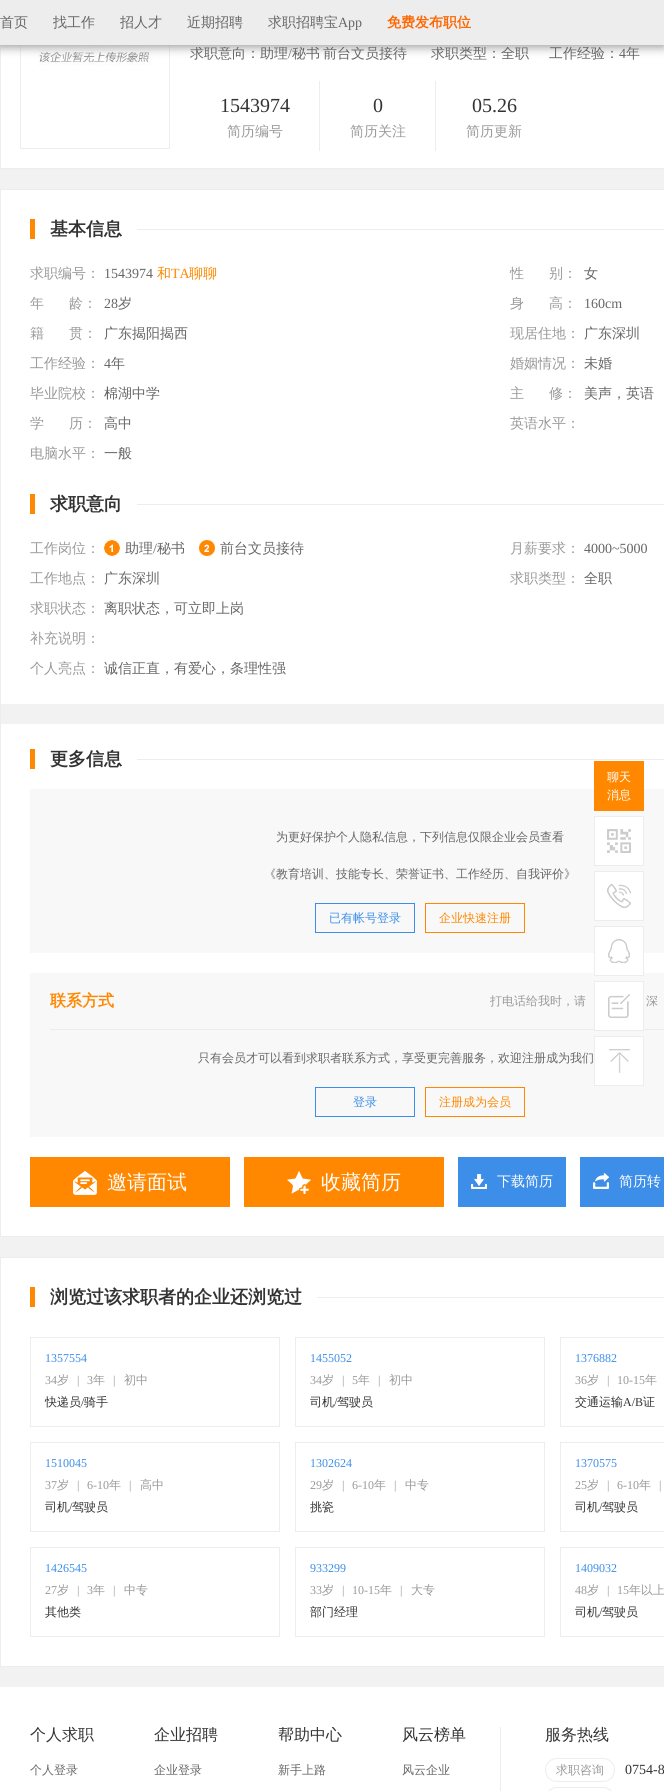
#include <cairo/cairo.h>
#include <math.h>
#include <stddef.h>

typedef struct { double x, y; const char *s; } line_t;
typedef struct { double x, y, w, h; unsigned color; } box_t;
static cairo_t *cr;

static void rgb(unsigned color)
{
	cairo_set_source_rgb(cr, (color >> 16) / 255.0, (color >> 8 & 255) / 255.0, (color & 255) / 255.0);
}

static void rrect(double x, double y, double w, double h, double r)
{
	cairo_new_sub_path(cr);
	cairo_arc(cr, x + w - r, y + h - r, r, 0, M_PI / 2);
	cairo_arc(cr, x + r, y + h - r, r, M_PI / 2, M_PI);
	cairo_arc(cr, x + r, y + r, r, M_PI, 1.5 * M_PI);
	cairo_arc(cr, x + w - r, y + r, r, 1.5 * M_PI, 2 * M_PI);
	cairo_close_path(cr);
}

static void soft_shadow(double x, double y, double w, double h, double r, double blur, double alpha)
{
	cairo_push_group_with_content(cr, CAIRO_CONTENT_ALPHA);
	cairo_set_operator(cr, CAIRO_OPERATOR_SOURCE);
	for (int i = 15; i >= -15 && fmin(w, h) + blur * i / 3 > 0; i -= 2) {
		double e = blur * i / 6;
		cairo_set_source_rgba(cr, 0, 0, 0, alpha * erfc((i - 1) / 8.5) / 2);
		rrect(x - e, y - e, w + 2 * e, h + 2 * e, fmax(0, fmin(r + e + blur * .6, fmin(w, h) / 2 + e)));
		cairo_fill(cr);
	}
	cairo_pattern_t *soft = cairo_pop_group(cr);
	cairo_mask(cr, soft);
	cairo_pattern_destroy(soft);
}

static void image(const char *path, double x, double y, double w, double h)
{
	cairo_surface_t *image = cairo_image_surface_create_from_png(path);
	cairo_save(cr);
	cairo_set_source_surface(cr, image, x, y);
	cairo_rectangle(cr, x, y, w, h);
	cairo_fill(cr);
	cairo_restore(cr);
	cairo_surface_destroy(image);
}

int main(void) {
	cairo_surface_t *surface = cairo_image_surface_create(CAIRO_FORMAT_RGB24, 664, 1791);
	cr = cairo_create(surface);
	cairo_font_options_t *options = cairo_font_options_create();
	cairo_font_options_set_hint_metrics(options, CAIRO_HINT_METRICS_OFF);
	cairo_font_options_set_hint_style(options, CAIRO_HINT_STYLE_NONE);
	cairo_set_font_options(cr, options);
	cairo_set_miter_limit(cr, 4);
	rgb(0xf2f2f2);
	cairo_paint(cr);
	rgb(0xffffff);
	cairo_rectangle(cr, 1, 45, 663, 123);
	cairo_fill(cr);
	cairo_rectangle(cr, 0.5, -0.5, 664, 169);
	rgb(0xededed);
	cairo_set_line_width(cr, 1);
	cairo_stroke(cr);
	cairo_rectangle(cr, 20.5, -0.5, 149, 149);
	cairo_stroke(cr);
	image("img/1.png", 37, 45, 116, 21);
	rgb(0x999999);
	soft_shadow(0, 2, 664, 45, 0, 5, 1);
	{
		static const box_t items[] = {
			{0, 0, 664, 45, 0xededed},
			{319, 81, 1, 70, 0xededed},
			{435, 81, 1, 70, 0xededed},
		};
		for (size_t i = 0; i < sizeof items / sizeof *items; i++) {
			rgb(items[i].color);
			cairo_rectangle(cr, items[i].x, items[i].y, items[i].w, items[i].h);
			cairo_fill(cr);
		}
	}
	rgb(0xffffff);
	cairo_rectangle(cr, 0.5, 189.5, 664, 1047);
	cairo_fill_preserve(cr);
	rgb(0xededed);
	cairo_stroke(cr);
	{
		static const box_t items[] = {
			{30, 219, 5, 20, 0xff8800},
			{137, 229, 527, 1, 0xededed},
			{30, 494, 5, 20, 0xff8800},
			{137, 504, 527, 1, 0xededed},
		};
		for (size_t i = 0; i < sizeof items / sizeof *items; i++) {
			rgb(items[i].color);
			cairo_rectangle(cr, items[i].x, items[i].y, items[i].w, items[i].h);
			cairo_fill(cr);
		}
	}
	image("img/2.png", 104, 540, 16, 16);
	image("img/3.png", 199, 540, 16, 16);
	{
		static const box_t items[] = {
			{1, 704, 663, 20, 0xf2f2f2},
			{30, 749, 5, 20, 0xff8800},
			{137, 759, 527, 1, 0xededed},
			{30, 789, 634, 164, 0xf8f8f8},
		};
		for (size_t i = 0; i < sizeof items / sizeof *items; i++) {
			rgb(items[i].color);
			cairo_rectangle(cr, items[i].x, items[i].y, items[i].w, items[i].h);
			cairo_fill(cr);
		}
	}
	cairo_rectangle(cr, 315.5, 903.5, 99, 29);
	rgb(0x3d8ee8);
	cairo_stroke(cr);
	cairo_rectangle(cr, 425.5, 903.5, 99, 29);
	rgb(0xff8800);
	cairo_stroke(cr);
	rgb(0xf8f8f8);
	cairo_rectangle(cr, 30, 973, 634, 164);
	cairo_fill(cr);
	rgb(0xededed);
	cairo_rectangle(cr, 50, 1029, 614, 1);
	cairo_fill(cr);
	cairo_rectangle(cr, 315.5, 1087.5, 99, 29);
	rgb(0x3d8ee8);
	cairo_stroke(cr);
	cairo_rectangle(cr, 425.5, 1087.5, 99, 29);
	rgb(0xff8800);
	cairo_stroke(cr);
	cairo_rectangle(cr, 30, 1157, 200, 50);
	cairo_fill(cr);
	image("img/4.png", 73, 1171, 24, 24);
	cairo_rectangle(cr, 244, 1157, 200, 50);
	cairo_fill(cr);
	image("img/5.png", 287, 1171, 24, 23);
	rgb(0x3d8ee8);
	cairo_rectangle(cr, 458, 1157, 108, 50);
	cairo_fill(cr);
	image("img/6.png", 471, 1174, 16, 15);
	cairo_rectangle(cr, 580, 1157, 84, 50);
	cairo_fill(cr);
	image("img/7.png", 593, 1173, 16, 16);
	rgb(0xffffff);
	cairo_rectangle(cr, 0.5, 1257.5, 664, 409);
	cairo_fill_preserve(cr);
	rgb(0xededed);
	cairo_stroke(cr);
	rgb(0xff8800);
	cairo_rectangle(cr, 30, 1287, 5, 20);
	cairo_fill(cr);
	rgb(0xededed);
	cairo_rectangle(cr, 317, 1297, 347, 1);
	cairo_fill(cr);
	cairo_rectangle(cr, 30.5, 1337.5, 249, 89);
	cairo_stroke(cr);
	cairo_rectangle(cr, 295.5, 1337.5, 249, 89);
	cairo_stroke(cr);
	cairo_rectangle(cr, 560.5, 1337.5, 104, 89);
	cairo_stroke(cr);
	cairo_rectangle(cr, 30.5, 1442.5, 249, 89);
	cairo_stroke(cr);
	cairo_rectangle(cr, 295.5, 1442.5, 249, 89);
	cairo_stroke(cr);
	cairo_rectangle(cr, 560.5, 1442.5, 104, 89);
	cairo_stroke(cr);
	cairo_rectangle(cr, 30.5, 1547.5, 249, 89);
	cairo_stroke(cr);
	cairo_rectangle(cr, 295.5, 1547.5, 249, 89);
	cairo_stroke(cr);
	cairo_rectangle(cr, 560.5, 1547.5, 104, 89);
	cairo_stroke(cr);
	cairo_rectangle(cr, 594.5, 761.5, 49, 49);
	rgb(0xff8800);
	cairo_stroke(cr);
	cairo_rectangle(cr, 595, 762, 48, 48);
	cairo_fill(cr);
	rgb(0xffffff);
	cairo_rectangle(cr, 594.5, 816.5, 49, 49);
	cairo_fill_preserve(cr);
	rgb(0xededed);
	cairo_stroke(cr);
	image("img/8.png", 607, 829, 24, 24);
	rgb(0xffffff);
	cairo_rectangle(cr, 594.5, 871.5, 49, 49);
	cairo_fill_preserve(cr);
	rgb(0xededed);
	cairo_stroke(cr);
	image("img/9.png", 607, 884, 24, 24);
	rgb(0xffffff);
	cairo_rectangle(cr, 594.5, 926.5, 49, 49);
	cairo_fill_preserve(cr);
	rgb(0xededed);
	cairo_stroke(cr);
	image("img/10.png", 608, 939, 22, 24);
	rgb(0xffffff);
	cairo_rectangle(cr, 594.5, 981.5, 49, 49);
	cairo_fill_preserve(cr);
	rgb(0xededed);
	cairo_stroke(cr);
	image("img/11.png", 608, 994, 22, 24);
	rgb(0xffffff);
	cairo_rectangle(cr, 594.5, 1036.5, 49, 49);
	cairo_fill_preserve(cr);
	rgb(0xededed);
	cairo_stroke(cr);
	image("img/12.png", 609, 1049, 21, 24);
	rgb(0xffffff);
	cairo_rectangle(cr, 0, 1687, 664, 104);
	cairo_fill(cr);
	rgb(0xededed);
	cairo_rectangle(cr, 500, 1727, 1, 64);
	cairo_fill(cr);
	rrect(545.5, 1758.5, 69, 23, 11.5);
	cairo_stroke(cr);
	rrect(545.5, 1787.5, 69, 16, 11.5);
	cairo_stroke(cr);
	cairo_select_font_face(cr, "WenQuanYi Zen Hei Medium", CAIRO_FONT_SLANT_NORMAL, CAIRO_FONT_WEIGHT_NORMAL);
	cairo_set_font_size(cr, 14);
	rgb(0x666666);
	{
		static const line_t items[] = {
			{0, 27, "首页"},
			{53, 27, "找工作"},
			{120, 27, "招人才"},
			{187, 27, "近期招聘"},
			{268, 27, "求职招聘宝"},
		};
		for (size_t i = 0; i < sizeof items / sizeof *items; i++) {
			cairo_move_to(cr, items[i].x, items[i].y);
			cairo_show_text(cr, items[i].s);
		}
	}
	cairo_select_font_face(cr, "Liberation Serif", CAIRO_FONT_SLANT_NORMAL, CAIRO_FONT_WEIGHT_NORMAL);
	cairo_move_to(cr, 338, 27);
	cairo_show_text(cr, "App");
	cairo_select_font_face(cr, "WenQuanYi Zen Hei", CAIRO_FONT_SLANT_NORMAL, CAIRO_FONT_WEIGHT_BOLD);
	rgb(0xff6600);
	cairo_move_to(cr, 387, 27);
	cairo_show_text(cr, "免费发布职位");
	cairo_save(cr);
	cairo_rectangle(cr, 190, 47, 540, 14);
	cairo_clip(cr);
	cairo_select_font_face(cr, "WenQuanYi Zen Hei Medium", CAIRO_FONT_SLANT_NORMAL, CAIRO_FONT_WEIGHT_NORMAL);
	rgb(0x666666);
	cairo_move_to(cr, 190, 58);
	cairo_show_text(cr, "求职意向：助理");
	cairo_restore(cr);
	cairo_select_font_face(cr, "Liberation Serif", CAIRO_FONT_SLANT_NORMAL, CAIRO_FONT_WEIGHT_NORMAL);
	rgb(0x666666);
	cairo_move_to(cr, 288, 58);
	cairo_show_text(cr, "/");
	cairo_save(cr);
	cairo_rectangle(cr, 190, 47, 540, 14);
	cairo_clip(cr);
	cairo_select_font_face(cr, "WenQuanYi Zen Hei Medium", CAIRO_FONT_SLANT_NORMAL, CAIRO_FONT_WEIGHT_NORMAL);
	{
		static const line_t items[] = {
			{292, 58, "秘书"},
			{323, 58, "前台文员接待"},
			{431, 58, "求职类型：全职"},
		};
		for (size_t i = 0; i < sizeof items / sizeof *items; i++) {
			cairo_move_to(cr, items[i].x, items[i].y);
			cairo_show_text(cr, items[i].s);
		}
	}
	cairo_restore(cr);
	cairo_select_font_face(cr, "WenQuanYi Zen Hei Medium", CAIRO_FONT_SLANT_NORMAL, CAIRO_FONT_WEIGHT_NORMAL);
	cairo_move_to(cr, 549, 58);
	cairo_show_text(cr, "工作经验：");
	cairo_select_font_face(cr, "Liberation Serif", CAIRO_FONT_SLANT_NORMAL, CAIRO_FONT_WEIGHT_NORMAL);
	cairo_move_to(cr, 619, 58);
	cairo_show_text(cr, "4");
	cairo_select_font_face(cr, "WenQuanYi Zen Hei Medium", CAIRO_FONT_SLANT_NORMAL, CAIRO_FONT_WEIGHT_NORMAL);
	cairo_move_to(cr, 626, 58);
	cairo_show_text(cr, "年");
	cairo_select_font_face(cr, "Liberation Serif", CAIRO_FONT_SLANT_NORMAL, CAIRO_FONT_WEIGHT_NORMAL);
	cairo_set_font_size(cr, 20);
	rgb(0x333333);
	cairo_move_to(cr, 220, 112);
	cairo_show_text(cr, "1543974");
	cairo_select_font_face(cr, "WenQuanYi Zen Hei Medium", CAIRO_FONT_SLANT_NORMAL, CAIRO_FONT_WEIGHT_NORMAL);
	cairo_set_font_size(cr, 14);
	rgb(0x999999);
	cairo_move_to(cr, 227, 136);
	cairo_show_text(cr, "简历编号");
	cairo_select_font_face(cr, "Liberation Serif", CAIRO_FONT_SLANT_NORMAL, CAIRO_FONT_WEIGHT_NORMAL);
	cairo_set_font_size(cr, 20);
	rgb(0x333333);
	cairo_move_to(cr, 373, 112);
	cairo_show_text(cr, "0");
	cairo_select_font_face(cr, "WenQuanYi Zen Hei Medium", CAIRO_FONT_SLANT_NORMAL, CAIRO_FONT_WEIGHT_NORMAL);
	cairo_set_font_size(cr, 14);
	rgb(0x999999);
	cairo_move_to(cr, 350, 136);
	cairo_show_text(cr, "简历关注");
	cairo_select_font_face(cr, "Liberation Serif", CAIRO_FONT_SLANT_NORMAL, CAIRO_FONT_WEIGHT_NORMAL);
	cairo_set_font_size(cr, 20);
	rgb(0x333333);
	cairo_move_to(cr, 472, 112);
	cairo_show_text(cr, "05.26");
	cairo_select_font_face(cr, "WenQuanYi Zen Hei Medium", CAIRO_FONT_SLANT_NORMAL, CAIRO_FONT_WEIGHT_NORMAL);
	cairo_set_font_size(cr, 14);
	rgb(0x999999);
	cairo_move_to(cr, 466, 136);
	cairo_show_text(cr, "简历更新");
	cairo_select_font_face(cr, "WenQuanYi Zen Hei", CAIRO_FONT_SLANT_NORMAL, CAIRO_FONT_WEIGHT_BOLD);
	cairo_set_font_size(cr, 18);
	rgb(0x333333);
	cairo_move_to(cr, 50, 235);
	cairo_show_text(cr, "基本信息");
	cairo_select_font_face(cr, "WenQuanYi Zen Hei Medium", CAIRO_FONT_SLANT_NORMAL, CAIRO_FONT_WEIGHT_NORMAL);
	cairo_set_font_size(cr, 14);
	rgb(0x999999);
	cairo_move_to(cr, 30, 278);
	cairo_show_text(cr, "求职编号：");
	cairo_select_font_face(cr, "Liberation Serif", CAIRO_FONT_SLANT_NORMAL, CAIRO_FONT_WEIGHT_NORMAL);
	rgb(0x666666);
	cairo_move_to(cr, 104, 278);
	cairo_show_text(cr, "1543974");
	cairo_select_font_face(cr, "WenQuanYi Zen Hei Medium", CAIRO_FONT_SLANT_NORMAL, CAIRO_FONT_WEIGHT_NORMAL);
	rgb(0xff8800);
	cairo_move_to(cr, 157, 278);
	cairo_show_text(cr, "和");
	cairo_select_font_face(cr, "Liberation Serif", CAIRO_FONT_SLANT_NORMAL, CAIRO_FONT_WEIGHT_NORMAL);
	cairo_move_to(cr, 171, 278);
	cairo_show_text(cr, "TA");
	cairo_select_font_face(cr, "WenQuanYi Zen Hei Medium", CAIRO_FONT_SLANT_NORMAL, CAIRO_FONT_WEIGHT_NORMAL);
	cairo_move_to(cr, 189, 278);
	cairo_show_text(cr, "聊聊");
	rgb(0x999999);
	cairo_move_to(cr, 510, 278);
	cairo_show_text(cr, "性");
	cairo_move_to(cr, 549, 278);
	cairo_show_text(cr, "别：");
	rgb(0x666666);
	cairo_move_to(cr, 584, 278);
	cairo_show_text(cr, "女");
	rgb(0x999999);
	cairo_move_to(cr, 30, 308);
	cairo_show_text(cr, "年");
	cairo_move_to(cr, 69, 308);
	cairo_show_text(cr, "龄：");
	cairo_select_font_face(cr, "Liberation Serif", CAIRO_FONT_SLANT_NORMAL, CAIRO_FONT_WEIGHT_NORMAL);
	rgb(0x666666);
	cairo_move_to(cr, 104, 308);
	cairo_show_text(cr, "28");
	cairo_select_font_face(cr, "WenQuanYi Zen Hei Medium", CAIRO_FONT_SLANT_NORMAL, CAIRO_FONT_WEIGHT_NORMAL);
	cairo_move_to(cr, 118, 308);
	cairo_show_text(cr, "岁");
	rgb(0x999999);
	cairo_move_to(cr, 510, 308);
	cairo_show_text(cr, "身");
	cairo_move_to(cr, 549, 308);
	cairo_show_text(cr, "高：");
	cairo_select_font_face(cr, "Liberation Serif", CAIRO_FONT_SLANT_NORMAL, CAIRO_FONT_WEIGHT_NORMAL);
	rgb(0x666666);
	cairo_move_to(cr, 584, 308);
	cairo_show_text(cr, "160cm");
	cairo_select_font_face(cr, "WenQuanYi Zen Hei Medium", CAIRO_FONT_SLANT_NORMAL, CAIRO_FONT_WEIGHT_NORMAL);
	rgb(0x999999);
	cairo_move_to(cr, 30, 338);
	cairo_show_text(cr, "籍");
	cairo_move_to(cr, 69, 338);
	cairo_show_text(cr, "贯：");
	rgb(0x666666);
	cairo_move_to(cr, 104, 338);
	cairo_show_text(cr, "广东揭阳揭西");
	rgb(0x999999);
	cairo_move_to(cr, 510, 338);
	cairo_show_text(cr, "现居住地：");
	rgb(0x666666);
	cairo_move_to(cr, 584, 338);
	cairo_show_text(cr, "广东深圳");
	rgb(0x999999);
	cairo_move_to(cr, 30, 368);
	cairo_show_text(cr, "工作经验：");
	cairo_select_font_face(cr, "Liberation Serif", CAIRO_FONT_SLANT_NORMAL, CAIRO_FONT_WEIGHT_NORMAL);
	rgb(0x666666);
	cairo_move_to(cr, 104, 368);
	cairo_show_text(cr, "4");
	cairo_select_font_face(cr, "WenQuanYi Zen Hei Medium", CAIRO_FONT_SLANT_NORMAL, CAIRO_FONT_WEIGHT_NORMAL);
	cairo_move_to(cr, 111, 368);
	cairo_show_text(cr, "年");
	rgb(0x999999);
	cairo_move_to(cr, 510, 368);
	cairo_show_text(cr, "婚姻情况：");
	rgb(0x666666);
	cairo_move_to(cr, 584, 368);
	cairo_show_text(cr, "未婚");
	rgb(0x999999);
	cairo_move_to(cr, 30, 398);
	cairo_show_text(cr, "毕业院校：");
	rgb(0x666666);
	cairo_move_to(cr, 104, 398);
	cairo_show_text(cr, "棉湖中学");
	rgb(0x999999);
	cairo_move_to(cr, 510, 398);
	cairo_show_text(cr, "主");
	cairo_move_to(cr, 549, 398);
	cairo_show_text(cr, "修：");
	rgb(0x666666);
	cairo_move_to(cr, 584, 398);
	cairo_show_text(cr, "美声，英语");
	rgb(0x999999);
	cairo_move_to(cr, 30, 428);
	cairo_show_text(cr, "学");
	cairo_move_to(cr, 69, 428);
	cairo_show_text(cr, "历：");
	rgb(0x666666);
	cairo_move_to(cr, 104, 428);
	cairo_show_text(cr, "高中");
	rgb(0x999999);
	cairo_move_to(cr, 510, 428);
	cairo_show_text(cr, "英语水平：");
	cairo_move_to(cr, 30, 458);
	cairo_show_text(cr, "电脑水平：");
	rgb(0x666666);
	cairo_move_to(cr, 104, 458);
	cairo_show_text(cr, "一般");
	cairo_select_font_face(cr, "WenQuanYi Zen Hei", CAIRO_FONT_SLANT_NORMAL, CAIRO_FONT_WEIGHT_BOLD);
	cairo_set_font_size(cr, 18);
	rgb(0x333333);
	cairo_move_to(cr, 50, 510);
	cairo_show_text(cr, "求职意向");
	cairo_select_font_face(cr, "WenQuanYi Zen Hei Medium", CAIRO_FONT_SLANT_NORMAL, CAIRO_FONT_WEIGHT_NORMAL);
	cairo_set_font_size(cr, 14);
	rgb(0x999999);
	cairo_move_to(cr, 30, 553);
	cairo_show_text(cr, "工作岗位：");
	rgb(0x666666);
	cairo_move_to(cr, 125, 553);
	cairo_show_text(cr, "助理");
	cairo_select_font_face(cr, "Liberation Serif", CAIRO_FONT_SLANT_NORMAL, CAIRO_FONT_WEIGHT_NORMAL);
	cairo_move_to(cr, 153, 553);
	cairo_show_text(cr, "/");
	cairo_select_font_face(cr, "WenQuanYi Zen Hei Medium", CAIRO_FONT_SLANT_NORMAL, CAIRO_FONT_WEIGHT_NORMAL);
	cairo_move_to(cr, 157, 553);
	cairo_show_text(cr, "秘书");
	cairo_move_to(cr, 220, 553);
	cairo_show_text(cr, "前台文员接待");
	rgb(0x999999);
	cairo_move_to(cr, 510, 553);
	cairo_show_text(cr, "月薪要求：");
	cairo_select_font_face(cr, "Liberation Serif", CAIRO_FONT_SLANT_NORMAL, CAIRO_FONT_WEIGHT_NORMAL);
	rgb(0x666666);
	cairo_move_to(cr, 584, 553);
	cairo_show_text(cr, "4000~5000");
	cairo_select_font_face(cr, "WenQuanYi Zen Hei Medium", CAIRO_FONT_SLANT_NORMAL, CAIRO_FONT_WEIGHT_NORMAL);
	rgb(0x999999);
	cairo_move_to(cr, 30, 583);
	cairo_show_text(cr, "工作地点：");
	rgb(0x666666);
	cairo_move_to(cr, 104, 583);
	cairo_show_text(cr, "广东深圳");
	rgb(0x999999);
	cairo_move_to(cr, 510, 583);
	cairo_show_text(cr, "求职类型：");
	rgb(0x666666);
	cairo_move_to(cr, 584, 583);
	cairo_show_text(cr, "全职");
	rgb(0x999999);
	cairo_move_to(cr, 30, 613);
	cairo_show_text(cr, "求职状态：");
	rgb(0x666666);
	cairo_move_to(cr, 104, 613);
	cairo_show_text(cr, "离职状态，可立即上岗");
	rgb(0x999999);
	cairo_move_to(cr, 30, 643);
	cairo_show_text(cr, "补充说明：");
	cairo_move_to(cr, 30, 673);
	cairo_show_text(cr, "个人亮点：");
	rgb(0x666666);
	cairo_move_to(cr, 104, 673);
	cairo_show_text(cr, "诚信正直，有爱心，条理性强");
	cairo_select_font_face(cr, "WenQuanYi Zen Hei", CAIRO_FONT_SLANT_NORMAL, CAIRO_FONT_WEIGHT_BOLD);
	cairo_set_font_size(cr, 18);
	rgb(0x333333);
	cairo_move_to(cr, 50, 765);
	cairo_show_text(cr, "更多信息");
	cairo_select_font_face(cr, "WenQuanYi Zen Hei Medium", CAIRO_FONT_SLANT_NORMAL, CAIRO_FONT_WEIGHT_NORMAL);
	cairo_set_font_size(cr, 12);
	rgb(0x666666);
	cairo_move_to(cr, 276, 841);
	cairo_show_text(cr, "为更好保护个人隐私信息，下列信息仅限企业会员查看");
	cairo_move_to(cr, 264, 878);
	cairo_show_text(cr, "《教育培训、技能专长、荣誉证书、工作经历、自我评价》");
	rgb(0x3d8ee8);
	cairo_move_to(cr, 329, 922);
	cairo_show_text(cr, "已有帐号登录");
	rgb(0xff8800);
	cairo_move_to(cr, 439, 922);
	cairo_show_text(cr, "企业快速注册");
	cairo_select_font_face(cr, "WenQuanYi Zen Hei", CAIRO_FONT_SLANT_NORMAL, CAIRO_FONT_WEIGHT_BOLD);
	cairo_set_font_size(cr, 16);
	cairo_move_to(cr, 50, 1006);
	cairo_show_text(cr, "联系方式");
	cairo_select_font_face(cr, "WenQuanYi Zen Hei Medium", CAIRO_FONT_SLANT_NORMAL, CAIRO_FONT_WEIGHT_NORMAL);
	cairo_set_font_size(cr, 12);
	rgb(0x999999);
	cairo_move_to(cr, 490, 1005);
	cairo_show_text(cr, "打电话给我时，请");
	cairo_move_to(cr, 646, 1005);
	cairo_show_text(cr, "深");
	rgb(0x666666);
	cairo_move_to(cr, 198, 1062);
	cairo_show_text(cr, "只有会员才可以看到求职者联系方式，享受更完善服务，欢迎注册成为我们");
	rgb(0x3d8ee8);
	cairo_move_to(cr, 353, 1106);
	cairo_show_text(cr, "登录");
	rgb(0xff8800);
	cairo_move_to(cr, 439, 1106);
	cairo_show_text(cr, "注册成为会员");
	cairo_set_font_size(cr, 20);
	rgb(0xffffff);
	cairo_move_to(cr, 107, 1189);
	cairo_show_text(cr, "邀请面试");
	cairo_move_to(cr, 321, 1189);
	cairo_show_text(cr, "收藏简历");
	cairo_set_font_size(cr, 14);
	cairo_move_to(cr, 497, 1186);
	cairo_show_text(cr, "下载简历");
	cairo_move_to(cr, 619, 1186);
	cairo_show_text(cr, "简历转");
	cairo_select_font_face(cr, "WenQuanYi Zen Hei", CAIRO_FONT_SLANT_NORMAL, CAIRO_FONT_WEIGHT_BOLD);
	cairo_set_font_size(cr, 18);
	rgb(0x333333);
	cairo_move_to(cr, 50, 1303);
	cairo_show_text(cr, "浏览过该求职者的企业还浏览过");
	cairo_select_font_face(cr, "Liberation Serif", CAIRO_FONT_SLANT_NORMAL, CAIRO_FONT_WEIGHT_NORMAL);
	cairo_set_font_size(cr, 12);
	rgb(0x3d8ee8);
	cairo_move_to(cr, 45, 1362);
	cairo_show_text(cr, "1357554");
	rgb(0x999999);
	cairo_move_to(cr, 45, 1384);
	cairo_show_text(cr, "34");
	cairo_select_font_face(cr, "WenQuanYi Zen Hei Medium", CAIRO_FONT_SLANT_NORMAL, CAIRO_FONT_WEIGHT_NORMAL);
	cairo_move_to(cr, 57, 1384);
	cairo_show_text(cr, "岁");
	cairo_select_font_face(cr, "Liberation Serif", CAIRO_FONT_SLANT_NORMAL, CAIRO_FONT_WEIGHT_NORMAL);
	cairo_move_to(cr, 77, 1384);
	cairo_show_text(cr, "|");
	cairo_move_to(cr, 87, 1384);
	cairo_show_text(cr, "3");
	cairo_select_font_face(cr, "WenQuanYi Zen Hei Medium", CAIRO_FONT_SLANT_NORMAL, CAIRO_FONT_WEIGHT_NORMAL);
	cairo_move_to(cr, 93, 1384);
	cairo_show_text(cr, "年");
	cairo_select_font_face(cr, "Liberation Serif", CAIRO_FONT_SLANT_NORMAL, CAIRO_FONT_WEIGHT_NORMAL);
	cairo_move_to(cr, 113, 1384);
	cairo_show_text(cr, "|");
	cairo_select_font_face(cr, "WenQuanYi Zen Hei Medium", CAIRO_FONT_SLANT_NORMAL, CAIRO_FONT_WEIGHT_NORMAL);
	cairo_move_to(cr, 124, 1384);
	cairo_show_text(cr, "初中");
	rgb(0x333333);
	cairo_move_to(cr, 45, 1406);
	cairo_show_text(cr, "快递员");
	cairo_select_font_face(cr, "Liberation Serif", CAIRO_FONT_SLANT_NORMAL, CAIRO_FONT_WEIGHT_NORMAL);
	cairo_move_to(cr, 81, 1406);
	cairo_show_text(cr, "/");
	cairo_select_font_face(cr, "WenQuanYi Zen Hei Medium", CAIRO_FONT_SLANT_NORMAL, CAIRO_FONT_WEIGHT_NORMAL);
	cairo_move_to(cr, 84, 1406);
	cairo_show_text(cr, "骑手");
	cairo_select_font_face(cr, "Liberation Serif", CAIRO_FONT_SLANT_NORMAL, CAIRO_FONT_WEIGHT_NORMAL);
	rgb(0x3d8ee8);
	cairo_move_to(cr, 310, 1362);
	cairo_show_text(cr, "1455052");
	rgb(0x999999);
	cairo_move_to(cr, 310, 1384);
	cairo_show_text(cr, "34");
	cairo_select_font_face(cr, "WenQuanYi Zen Hei Medium", CAIRO_FONT_SLANT_NORMAL, CAIRO_FONT_WEIGHT_NORMAL);
	cairo_move_to(cr, 322, 1384);
	cairo_show_text(cr, "岁");
	cairo_select_font_face(cr, "Liberation Serif", CAIRO_FONT_SLANT_NORMAL, CAIRO_FONT_WEIGHT_NORMAL);
	cairo_move_to(cr, 342, 1384);
	cairo_show_text(cr, "|");
	cairo_move_to(cr, 352, 1384);
	cairo_show_text(cr, "5");
	cairo_select_font_face(cr, "WenQuanYi Zen Hei Medium", CAIRO_FONT_SLANT_NORMAL, CAIRO_FONT_WEIGHT_NORMAL);
	cairo_move_to(cr, 358, 1384);
	cairo_show_text(cr, "年");
	cairo_select_font_face(cr, "Liberation Serif", CAIRO_FONT_SLANT_NORMAL, CAIRO_FONT_WEIGHT_NORMAL);
	cairo_move_to(cr, 378, 1384);
	cairo_show_text(cr, "|");
	cairo_select_font_face(cr, "WenQuanYi Zen Hei Medium", CAIRO_FONT_SLANT_NORMAL, CAIRO_FONT_WEIGHT_NORMAL);
	cairo_move_to(cr, 389, 1384);
	cairo_show_text(cr, "初中");
	rgb(0x333333);
	cairo_move_to(cr, 310, 1406);
	cairo_show_text(cr, "司机");
	cairo_select_font_face(cr, "Liberation Serif", CAIRO_FONT_SLANT_NORMAL, CAIRO_FONT_WEIGHT_NORMAL);
	cairo_move_to(cr, 334, 1406);
	cairo_show_text(cr, "/");
	cairo_select_font_face(cr, "WenQuanYi Zen Hei Medium", CAIRO_FONT_SLANT_NORMAL, CAIRO_FONT_WEIGHT_NORMAL);
	cairo_move_to(cr, 337, 1406);
	cairo_show_text(cr, "驾驶员");
	cairo_select_font_face(cr, "Liberation Serif", CAIRO_FONT_SLANT_NORMAL, CAIRO_FONT_WEIGHT_NORMAL);
	rgb(0x3d8ee8);
	cairo_move_to(cr, 575, 1362);
	cairo_show_text(cr, "1376882");
	rgb(0x999999);
	cairo_move_to(cr, 575, 1384);
	cairo_show_text(cr, "36");
	cairo_select_font_face(cr, "WenQuanYi Zen Hei Medium", CAIRO_FONT_SLANT_NORMAL, CAIRO_FONT_WEIGHT_NORMAL);
	cairo_move_to(cr, 587, 1384);
	cairo_show_text(cr, "岁");
	cairo_select_font_face(cr, "Liberation Serif", CAIRO_FONT_SLANT_NORMAL, CAIRO_FONT_WEIGHT_NORMAL);
	cairo_move_to(cr, 607, 1384);
	cairo_show_text(cr, "|");
	cairo_move_to(cr, 617, 1384);
	cairo_show_text(cr, "10-15");
	cairo_select_font_face(cr, "WenQuanYi Zen Hei Medium", CAIRO_FONT_SLANT_NORMAL, CAIRO_FONT_WEIGHT_NORMAL);
	cairo_move_to(cr, 645, 1384);
	cairo_show_text(cr, "年");
	rgb(0x333333);
	cairo_move_to(cr, 575, 1406);
	cairo_show_text(cr, "交通运输");
	cairo_select_font_face(cr, "Liberation Serif", CAIRO_FONT_SLANT_NORMAL, CAIRO_FONT_WEIGHT_NORMAL);
	cairo_move_to(cr, 623, 1406);
	cairo_show_text(cr, "A/B");
	cairo_select_font_face(cr, "WenQuanYi Zen Hei Medium", CAIRO_FONT_SLANT_NORMAL, CAIRO_FONT_WEIGHT_NORMAL);
	cairo_move_to(cr, 643, 1406);
	cairo_show_text(cr, "证");
	cairo_select_font_face(cr, "Liberation Serif", CAIRO_FONT_SLANT_NORMAL, CAIRO_FONT_WEIGHT_NORMAL);
	rgb(0x3d8ee8);
	cairo_move_to(cr, 45, 1467);
	cairo_show_text(cr, "1510045");
	rgb(0x999999);
	cairo_move_to(cr, 45, 1489);
	cairo_show_text(cr, "37");
	cairo_select_font_face(cr, "WenQuanYi Zen Hei Medium", CAIRO_FONT_SLANT_NORMAL, CAIRO_FONT_WEIGHT_NORMAL);
	cairo_move_to(cr, 57, 1489);
	cairo_show_text(cr, "岁");
	cairo_select_font_face(cr, "Liberation Serif", CAIRO_FONT_SLANT_NORMAL, CAIRO_FONT_WEIGHT_NORMAL);
	cairo_move_to(cr, 77, 1489);
	cairo_show_text(cr, "|");
	cairo_move_to(cr, 87, 1489);
	cairo_show_text(cr, "6-10");
	cairo_select_font_face(cr, "WenQuanYi Zen Hei Medium", CAIRO_FONT_SLANT_NORMAL, CAIRO_FONT_WEIGHT_NORMAL);
	cairo_move_to(cr, 109, 1489);
	cairo_show_text(cr, "年");
	cairo_select_font_face(cr, "Liberation Serif", CAIRO_FONT_SLANT_NORMAL, CAIRO_FONT_WEIGHT_NORMAL);
	cairo_move_to(cr, 129, 1489);
	cairo_show_text(cr, "|");
	cairo_select_font_face(cr, "WenQuanYi Zen Hei Medium", CAIRO_FONT_SLANT_NORMAL, CAIRO_FONT_WEIGHT_NORMAL);
	cairo_move_to(cr, 140, 1489);
	cairo_show_text(cr, "高中");
	rgb(0x333333);
	cairo_move_to(cr, 45, 1511);
	cairo_show_text(cr, "司机");
	cairo_select_font_face(cr, "Liberation Serif", CAIRO_FONT_SLANT_NORMAL, CAIRO_FONT_WEIGHT_NORMAL);
	cairo_move_to(cr, 69, 1511);
	cairo_show_text(cr, "/");
	cairo_select_font_face(cr, "WenQuanYi Zen Hei Medium", CAIRO_FONT_SLANT_NORMAL, CAIRO_FONT_WEIGHT_NORMAL);
	cairo_move_to(cr, 72, 1511);
	cairo_show_text(cr, "驾驶员");
	cairo_select_font_face(cr, "Liberation Serif", CAIRO_FONT_SLANT_NORMAL, CAIRO_FONT_WEIGHT_NORMAL);
	rgb(0x3d8ee8);
	cairo_move_to(cr, 310, 1467);
	cairo_show_text(cr, "1302624");
	rgb(0x999999);
	cairo_move_to(cr, 310, 1489);
	cairo_show_text(cr, "29");
	cairo_select_font_face(cr, "WenQuanYi Zen Hei Medium", CAIRO_FONT_SLANT_NORMAL, CAIRO_FONT_WEIGHT_NORMAL);
	cairo_move_to(cr, 322, 1489);
	cairo_show_text(cr, "岁");
	cairo_select_font_face(cr, "Liberation Serif", CAIRO_FONT_SLANT_NORMAL, CAIRO_FONT_WEIGHT_NORMAL);
	cairo_move_to(cr, 342, 1489);
	cairo_show_text(cr, "|");
	cairo_move_to(cr, 352, 1489);
	cairo_show_text(cr, "6-10");
	cairo_select_font_face(cr, "WenQuanYi Zen Hei Medium", CAIRO_FONT_SLANT_NORMAL, CAIRO_FONT_WEIGHT_NORMAL);
	cairo_move_to(cr, 374, 1489);
	cairo_show_text(cr, "年");
	cairo_select_font_face(cr, "Liberation Serif", CAIRO_FONT_SLANT_NORMAL, CAIRO_FONT_WEIGHT_NORMAL);
	cairo_move_to(cr, 394, 1489);
	cairo_show_text(cr, "|");
	cairo_select_font_face(cr, "WenQuanYi Zen Hei Medium", CAIRO_FONT_SLANT_NORMAL, CAIRO_FONT_WEIGHT_NORMAL);
	cairo_move_to(cr, 405, 1489);
	cairo_show_text(cr, "中专");
	rgb(0x333333);
	cairo_move_to(cr, 310, 1511);
	cairo_show_text(cr, "挑瓷");
	cairo_select_font_face(cr, "Liberation Serif", CAIRO_FONT_SLANT_NORMAL, CAIRO_FONT_WEIGHT_NORMAL);
	rgb(0x3d8ee8);
	cairo_move_to(cr, 575, 1467);
	cairo_show_text(cr, "1370575");
	rgb(0x999999);
	cairo_move_to(cr, 575, 1489);
	cairo_show_text(cr, "25");
	cairo_select_font_face(cr, "WenQuanYi Zen Hei Medium", CAIRO_FONT_SLANT_NORMAL, CAIRO_FONT_WEIGHT_NORMAL);
	cairo_move_to(cr, 587, 1489);
	cairo_show_text(cr, "岁");
	cairo_select_font_face(cr, "Liberation Serif", CAIRO_FONT_SLANT_NORMAL, CAIRO_FONT_WEIGHT_NORMAL);
	cairo_move_to(cr, 607, 1489);
	cairo_show_text(cr, "|");
	cairo_move_to(cr, 617, 1489);
	cairo_show_text(cr, "6-10");
	cairo_select_font_face(cr, "WenQuanYi Zen Hei Medium", CAIRO_FONT_SLANT_NORMAL, CAIRO_FONT_WEIGHT_NORMAL);
	cairo_move_to(cr, 639, 1489);
	cairo_show_text(cr, "年");
	cairo_select_font_face(cr, "Liberation Serif", CAIRO_FONT_SLANT_NORMAL, CAIRO_FONT_WEIGHT_NORMAL);
	cairo_move_to(cr, 659, 1489);
	cairo_show_text(cr, "|");
	cairo_select_font_face(cr, "WenQuanYi Zen Hei Medium", CAIRO_FONT_SLANT_NORMAL, CAIRO_FONT_WEIGHT_NORMAL);
	rgb(0x333333);
	cairo_move_to(cr, 575, 1511);
	cairo_show_text(cr, "司机");
	cairo_select_font_face(cr, "Liberation Serif", CAIRO_FONT_SLANT_NORMAL, CAIRO_FONT_WEIGHT_NORMAL);
	cairo_move_to(cr, 599, 1511);
	cairo_show_text(cr, "/");
	cairo_select_font_face(cr, "WenQuanYi Zen Hei Medium", CAIRO_FONT_SLANT_NORMAL, CAIRO_FONT_WEIGHT_NORMAL);
	cairo_move_to(cr, 602, 1511);
	cairo_show_text(cr, "驾驶员");
	cairo_select_font_face(cr, "Liberation Serif", CAIRO_FONT_SLANT_NORMAL, CAIRO_FONT_WEIGHT_NORMAL);
	rgb(0x3d8ee8);
	cairo_move_to(cr, 45, 1572);
	cairo_show_text(cr, "1426545");
	rgb(0x999999);
	cairo_move_to(cr, 45, 1594);
	cairo_show_text(cr, "27");
	cairo_select_font_face(cr, "WenQuanYi Zen Hei Medium", CAIRO_FONT_SLANT_NORMAL, CAIRO_FONT_WEIGHT_NORMAL);
	cairo_move_to(cr, 57, 1594);
	cairo_show_text(cr, "岁");
	cairo_select_font_face(cr, "Liberation Serif", CAIRO_FONT_SLANT_NORMAL, CAIRO_FONT_WEIGHT_NORMAL);
	cairo_move_to(cr, 77, 1594);
	cairo_show_text(cr, "|");
	cairo_move_to(cr, 87, 1594);
	cairo_show_text(cr, "3");
	cairo_select_font_face(cr, "WenQuanYi Zen Hei Medium", CAIRO_FONT_SLANT_NORMAL, CAIRO_FONT_WEIGHT_NORMAL);
	cairo_move_to(cr, 93, 1594);
	cairo_show_text(cr, "年");
	cairo_select_font_face(cr, "Liberation Serif", CAIRO_FONT_SLANT_NORMAL, CAIRO_FONT_WEIGHT_NORMAL);
	cairo_move_to(cr, 113, 1594);
	cairo_show_text(cr, "|");
	cairo_select_font_face(cr, "WenQuanYi Zen Hei Medium", CAIRO_FONT_SLANT_NORMAL, CAIRO_FONT_WEIGHT_NORMAL);
	cairo_move_to(cr, 124, 1594);
	cairo_show_text(cr, "中专");
	rgb(0x333333);
	cairo_move_to(cr, 45, 1616);
	cairo_show_text(cr, "其他类");
	cairo_select_font_face(cr, "Liberation Serif", CAIRO_FONT_SLANT_NORMAL, CAIRO_FONT_WEIGHT_NORMAL);
	rgb(0x3d8ee8);
	cairo_move_to(cr, 310, 1572);
	cairo_show_text(cr, "933299");
	rgb(0x999999);
	cairo_move_to(cr, 310, 1594);
	cairo_show_text(cr, "33");
	cairo_select_font_face(cr, "WenQuanYi Zen Hei Medium", CAIRO_FONT_SLANT_NORMAL, CAIRO_FONT_WEIGHT_NORMAL);
	cairo_move_to(cr, 322, 1594);
	cairo_show_text(cr, "岁");
	cairo_select_font_face(cr, "Liberation Serif", CAIRO_FONT_SLANT_NORMAL, CAIRO_FONT_WEIGHT_NORMAL);
	cairo_move_to(cr, 342, 1594);
	cairo_show_text(cr, "|");
	cairo_move_to(cr, 352, 1594);
	cairo_show_text(cr, "10-15");
	cairo_select_font_face(cr, "WenQuanYi Zen Hei Medium", CAIRO_FONT_SLANT_NORMAL, CAIRO_FONT_WEIGHT_NORMAL);
	cairo_move_to(cr, 380, 1594);
	cairo_show_text(cr, "年");
	cairo_select_font_face(cr, "Liberation Serif", CAIRO_FONT_SLANT_NORMAL, CAIRO_FONT_WEIGHT_NORMAL);
	cairo_move_to(cr, 400, 1594);
	cairo_show_text(cr, "|");
	cairo_select_font_face(cr, "WenQuanYi Zen Hei Medium", CAIRO_FONT_SLANT_NORMAL, CAIRO_FONT_WEIGHT_NORMAL);
	cairo_move_to(cr, 411, 1594);
	cairo_show_text(cr, "大专");
	rgb(0x333333);
	cairo_move_to(cr, 310, 1616);
	cairo_show_text(cr, "部门经理");
	cairo_select_font_face(cr, "Liberation Serif", CAIRO_FONT_SLANT_NORMAL, CAIRO_FONT_WEIGHT_NORMAL);
	rgb(0x3d8ee8);
	cairo_move_to(cr, 575, 1572);
	cairo_show_text(cr, "1409032");
	rgb(0x999999);
	cairo_move_to(cr, 575, 1594);
	cairo_show_text(cr, "48");
	cairo_select_font_face(cr, "WenQuanYi Zen Hei Medium", CAIRO_FONT_SLANT_NORMAL, CAIRO_FONT_WEIGHT_NORMAL);
	cairo_move_to(cr, 587, 1594);
	cairo_show_text(cr, "岁");
	cairo_select_font_face(cr, "Liberation Serif", CAIRO_FONT_SLANT_NORMAL, CAIRO_FONT_WEIGHT_NORMAL);
	cairo_move_to(cr, 607, 1594);
	cairo_show_text(cr, "|");
	cairo_move_to(cr, 617, 1594);
	cairo_show_text(cr, "15");
	cairo_select_font_face(cr, "WenQuanYi Zen Hei Medium", CAIRO_FONT_SLANT_NORMAL, CAIRO_FONT_WEIGHT_NORMAL);
	cairo_move_to(cr, 629, 1594);
	cairo_show_text(cr, "年以上");
	rgb(0x333333);
	cairo_move_to(cr, 575, 1616);
	cairo_show_text(cr, "司机");
	cairo_select_font_face(cr, "Liberation Serif", CAIRO_FONT_SLANT_NORMAL, CAIRO_FONT_WEIGHT_NORMAL);
	cairo_move_to(cr, 599, 1616);
	cairo_show_text(cr, "/");
	cairo_select_font_face(cr, "WenQuanYi Zen Hei Medium", CAIRO_FONT_SLANT_NORMAL, CAIRO_FONT_WEIGHT_NORMAL);
	cairo_move_to(cr, 602, 1616);
	cairo_show_text(cr, "驾驶员");
	rgb(0xffffff);
	cairo_move_to(cr, 607, 781);
	cairo_show_text(cr, "聊天");
	cairo_move_to(cr, 607, 799);
	cairo_show_text(cr, "消息");
	cairo_set_font_size(cr, 16);
	rgb(0x333333);
	cairo_move_to(cr, 30, 1740);
	cairo_show_text(cr, "个人求职");
	cairo_set_font_size(cr, 12);
	rgb(0x666666);
	cairo_move_to(cr, 30, 1774);
	cairo_show_text(cr, "个人登录");
	cairo_set_font_size(cr, 16);
	rgb(0x333333);
	cairo_move_to(cr, 154, 1740);
	cairo_show_text(cr, "企业招聘");
	cairo_set_font_size(cr, 12);
	rgb(0x666666);
	cairo_move_to(cr, 154, 1774);
	cairo_show_text(cr, "企业登录");
	cairo_save(cr);
	cairo_rectangle(cr, 0, 1727, 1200, 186);
	cairo_clip(cr);
	cairo_set_font_size(cr, 16);
	rgb(0x333333);
	cairo_move_to(cr, 278, 1740);
	cairo_show_text(cr, "帮助中心");
	cairo_restore(cr);
	cairo_move_to(cr, 278, 1774);
	cairo_show_text(cr, "新手上路");
	cairo_set_font_size(cr, 16);
	rgb(0x333333);
	cairo_move_to(cr, 402, 1740);
	cairo_show_text(cr, "风云榜单");
	cairo_set_font_size(cr, 12);
	rgb(0x666666);
	cairo_move_to(cr, 402, 1774);
	cairo_show_text(cr, "风云企业");
	cairo_set_font_size(cr, 16);
	rgb(0x333333);
	cairo_move_to(cr, 545, 1740);
	cairo_show_text(cr, "服务热线");
	cairo_set_font_size(cr, 12);
	rgb(0x999999);
	cairo_move_to(cr, 556, 1774);
	cairo_show_text(cr, "求职咨询");
	cairo_select_font_face(cr, "Liberation Serif", CAIRO_FONT_SLANT_NORMAL, CAIRO_FONT_WEIGHT_NORMAL);
	cairo_set_font_size(cr, 14);
	rgb(0x333333);
	cairo_move_to(cr, 625, 1774);
	cairo_show_text(cr, "0754-8");
	cairo_surface_write_to_png(surface, "page.png");
	cairo_font_options_destroy(options);
	cairo_destroy(cr);
	cairo_surface_destroy(surface);
	return 0;
}
